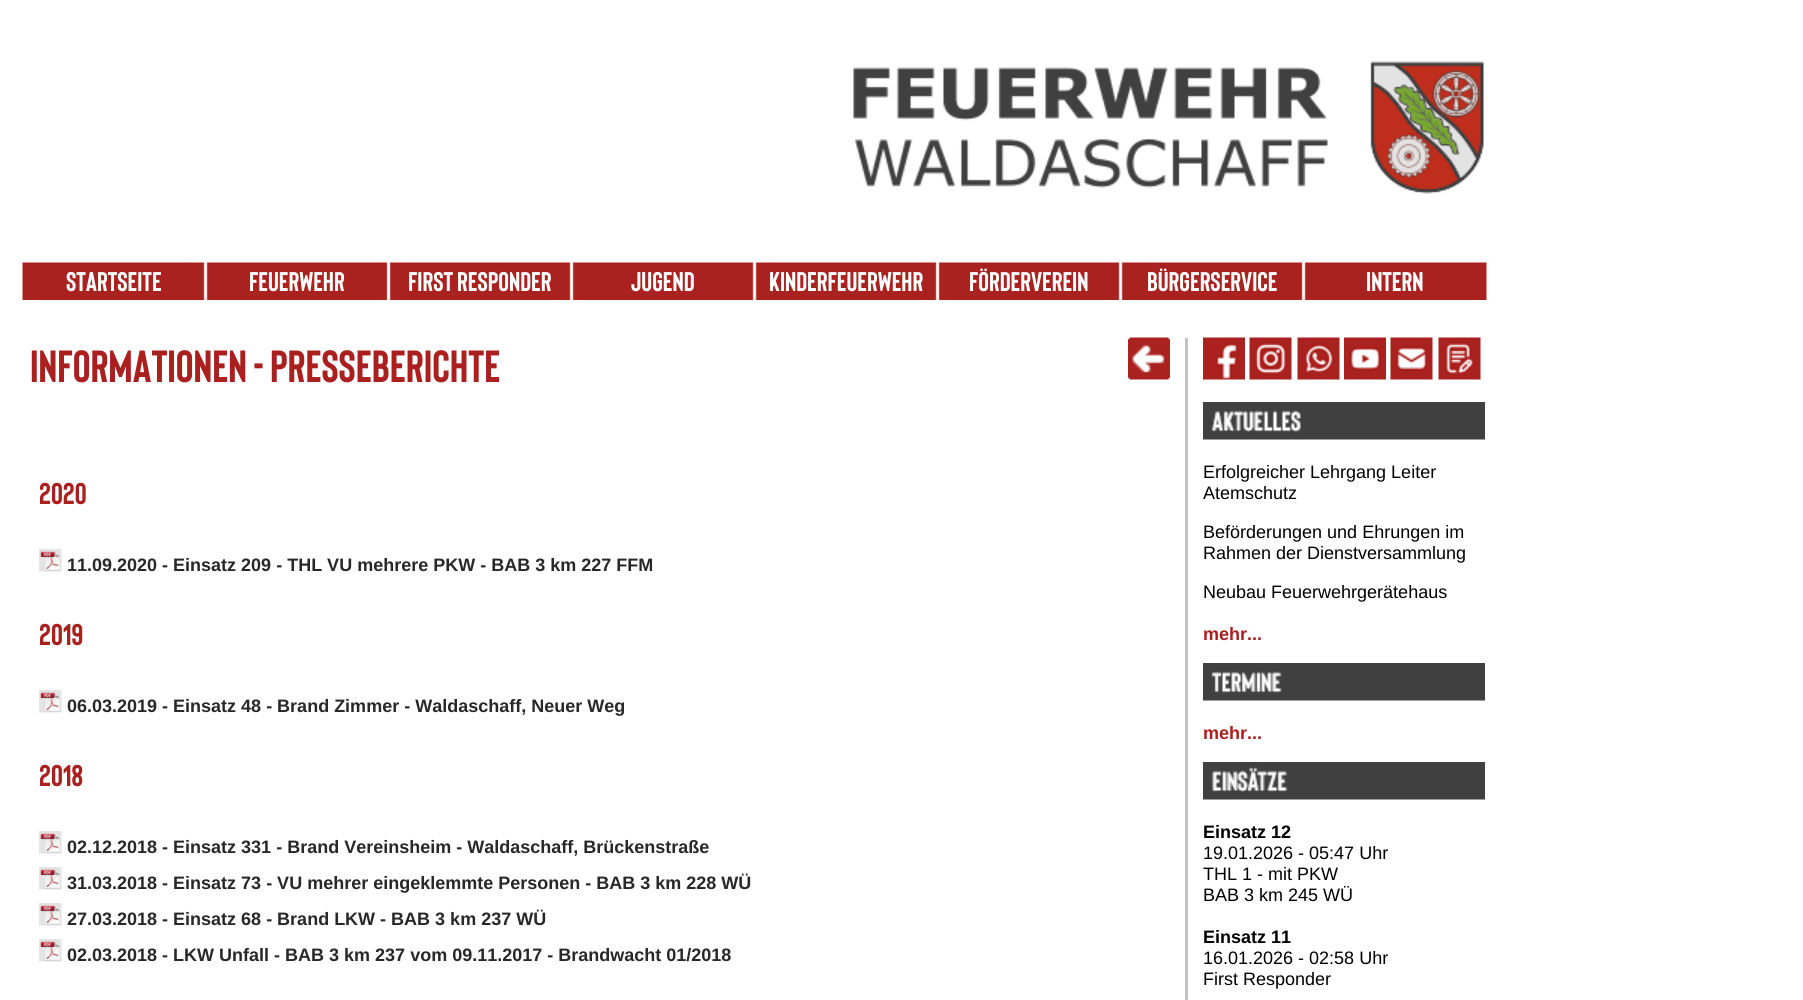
#include <cairo/cairo.h>
#include <math.h>
#include <stddef.h>

typedef struct { double x, y; const char *s; } line_t;
static cairo_t *cr;

static void rgb(unsigned color)
{
	cairo_set_source_rgb(cr, (color >> 16) / 255.0, (color >> 8 & 255) / 255.0, (color & 255) / 255.0);
}

static void image(const char *path, double x, double y, double w, double h)
{
	cairo_surface_t *image = cairo_image_surface_create_from_png(path);
	cairo_save(cr);
	cairo_set_source_surface(cr, image, x, y);
	cairo_rectangle(cr, x, y, w, h);
	cairo_fill(cr);
	cairo_restore(cr);
	cairo_surface_destroy(image);
}

int main(void) {
	cairo_surface_t *surface = cairo_image_surface_create(CAIRO_FORMAT_RGB24, 1803, 1000);
	cr = cairo_create(surface);
	cairo_font_options_t *options = cairo_font_options_create();
	cairo_font_options_set_hint_metrics(options, CAIRO_HINT_METRICS_OFF);
	cairo_font_options_set_hint_style(options, CAIRO_HINT_STYLE_NONE);
	cairo_set_font_options(cr, options);
	cairo_set_miter_limit(cr, 4);
	rgb(0xffffff);
	cairo_paint(cr);
	image("img/1.png", 853, 61, 631, 133);
	image("img/2.png", 22, 262, 1465, 38);
	image("img/3.png", 1128, 337, 42, 43);
	image("img/4.png", 39, 549, 23, 23);
	image("img/4.png", 39, 690, 23, 23);
	image("img/4.png", 39, 831, 23, 23);
	image("img/4.png", 39, 867, 23, 23);
	image("img/4.png", 39, 903, 23, 23);
	image("img/4.png", 39, 939, 23, 23);
	rgb(0xc3c3c3);
	cairo_rectangle(cr, 1185, 338, 3, 662);
	cairo_fill(cr);
	image("img/5.png", 1203, 337, 42, 43);
	image("img/6.png", 1249, 337, 43, 43);
	image("img/7.png", 1297, 337, 43, 43);
	image("img/8.png", 1344, 337, 42, 43);
	image("img/9.png", 1390, 337, 43, 43);
	image("img/10.png", 1438, 337, 43, 43);
	image("img/11.png", 1203, 402, 282, 38);
	image("img/12.png", 1203, 663, 282, 38);
	image("img/13.png", 1203, 762, 282, 38);
	cairo_select_font_face(cr, "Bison", CAIRO_FONT_SLANT_NORMAL, CAIRO_FONT_WEIGHT_BOLD);
	cairo_set_font_size(cr, 27);
	rgb(0xffffff);
	{
		static const line_t items[] = {
			{66, 291, "Startseite"},
			{249, 291, "Feuerwehr"},
			{408, 291, "First Responder"},
			{631, 291, "Jugend"},
			{769, 291, "Kinderfeuerwehr"},
			{969, 291, "Förderverein"},
			{1147, 291, "Bürgerservice"},
			{1366, 291, "Intern"},
		};
		for (size_t i = 0; i < sizeof items / sizeof *items; i++) {
			cairo_move_to(cr, items[i].x, items[i].y);
			cairo_show_text(cr, items[i].s);
		}
	}
	cairo_set_font_size(cr, 45);
	rgb(0xa9201f);
	cairo_move_to(cr, 30, 382);
	cairo_show_text(cr, "Informationen - Presseberichte");
	cairo_set_font_size(cr, 30);
	cairo_move_to(cr, 39, 504);
	cairo_show_text(cr, "2020");
	cairo_select_font_face(cr, "Liberation Sans", CAIRO_FONT_SLANT_NORMAL, CAIRO_FONT_WEIGHT_BOLD);
	cairo_set_font_size(cr, 18);
	rgb(0x282828);
	cairo_move_to(cr, 67, 571);
	cairo_show_text(cr, "11.09.2020 - Einsatz 209 - THL VU mehrere PKW - BAB 3 km 227 FFM");
	cairo_select_font_face(cr, "Bison", CAIRO_FONT_SLANT_NORMAL, CAIRO_FONT_WEIGHT_BOLD);
	cairo_set_font_size(cr, 30);
	rgb(0xa9201f);
	cairo_move_to(cr, 39, 645);
	cairo_show_text(cr, "2019");
	cairo_select_font_face(cr, "Liberation Sans", CAIRO_FONT_SLANT_NORMAL, CAIRO_FONT_WEIGHT_BOLD);
	cairo_set_font_size(cr, 18);
	rgb(0x282828);
	cairo_move_to(cr, 67, 712);
	cairo_show_text(cr, "06.03.2019 - Einsatz 48 - Brand Zimmer - Waldaschaff, Neuer Weg");
	cairo_select_font_face(cr, "Bison", CAIRO_FONT_SLANT_NORMAL, CAIRO_FONT_WEIGHT_BOLD);
	cairo_set_font_size(cr, 30);
	rgb(0xa9201f);
	cairo_move_to(cr, 39, 786);
	cairo_show_text(cr, "2018");
	cairo_select_font_face(cr, "Liberation Sans", CAIRO_FONT_SLANT_NORMAL, CAIRO_FONT_WEIGHT_BOLD);
	cairo_set_font_size(cr, 18);
	rgb(0x282828);
	{
		static const line_t items[] = {
			{67, 853, "02.12.2018 - Einsatz 331 - Brand Vereinsheim - Waldaschaff, Brückenstraße"},
			{67, 889, "31.03.2018 - Einsatz 73 - VU mehrer eingeklemmte Personen - BAB 3 km 228 WÜ"},
			{67, 925, "27.03.2018 - Einsatz 68 - Brand LKW - BAB 3 km 237 WÜ"},
			{67, 961, "02.03.2018 - LKW Unfall - BAB 3 km 237 vom 09.11.2017 - Brandwacht 01/2018"},
		};
		for (size_t i = 0; i < sizeof items / sizeof *items; i++) {
			cairo_move_to(cr, items[i].x, items[i].y);
			cairo_show_text(cr, items[i].s);
		}
	}
	cairo_select_font_face(cr, "Liberation Sans", CAIRO_FONT_SLANT_NORMAL, CAIRO_FONT_WEIGHT_NORMAL);
	rgb(0x000000);
	{
		static const line_t items[] = {
			{1203, 478, "Erfolgreicher Lehrgang Leiter"},
			{1203, 499, "Atemschutz"},
			{1203, 538, "Beförderungen und Ehrungen im"},
			{1203, 559, "Rahmen der Dienstversammlung"},
			{1203, 598, "Neubau Feuerwehrgerätehaus"},
		};
		for (size_t i = 0; i < sizeof items / sizeof *items; i++) {
			cairo_move_to(cr, items[i].x, items[i].y);
			cairo_show_text(cr, items[i].s);
		}
	}
	cairo_select_font_face(cr, "Liberation Sans", CAIRO_FONT_SLANT_NORMAL, CAIRO_FONT_WEIGHT_BOLD);
	rgb(0xa9201f);
	cairo_move_to(cr, 1203, 640);
	cairo_show_text(cr, "mehr...");
	cairo_move_to(cr, 1203, 739);
	cairo_show_text(cr, "mehr...");
	rgb(0x000000);
	cairo_move_to(cr, 1203, 838);
	cairo_show_text(cr, "Einsatz 12");
	cairo_select_font_face(cr, "Liberation Sans", CAIRO_FONT_SLANT_NORMAL, CAIRO_FONT_WEIGHT_NORMAL);
	{
		static const line_t items[] = {
			{1203, 859, "19.01.2026 - 05:47 Uhr"},
			{1203, 880, "THL 1 - mit PKW"},
			{1203, 901, "BAB 3 km 245 WÜ"},
		};
		for (size_t i = 0; i < sizeof items / sizeof *items; i++) {
			cairo_move_to(cr, items[i].x, items[i].y);
			cairo_show_text(cr, items[i].s);
		}
	}
	cairo_select_font_face(cr, "Liberation Sans", CAIRO_FONT_SLANT_NORMAL, CAIRO_FONT_WEIGHT_BOLD);
	cairo_move_to(cr, 1203, 943);
	cairo_show_text(cr, "Einsatz 11");
	cairo_select_font_face(cr, "Liberation Sans", CAIRO_FONT_SLANT_NORMAL, CAIRO_FONT_WEIGHT_NORMAL);
	cairo_move_to(cr, 1203, 964);
	cairo_show_text(cr, "16.01.2026 - 02:58 Uhr");
	cairo_move_to(cr, 1203, 985);
	cairo_show_text(cr, "First Responder");
	cairo_surface_write_to_png(surface, "page.png");
	cairo_font_options_destroy(options);
	cairo_destroy(cr);
	cairo_surface_destroy(surface);
	return 0;
}
